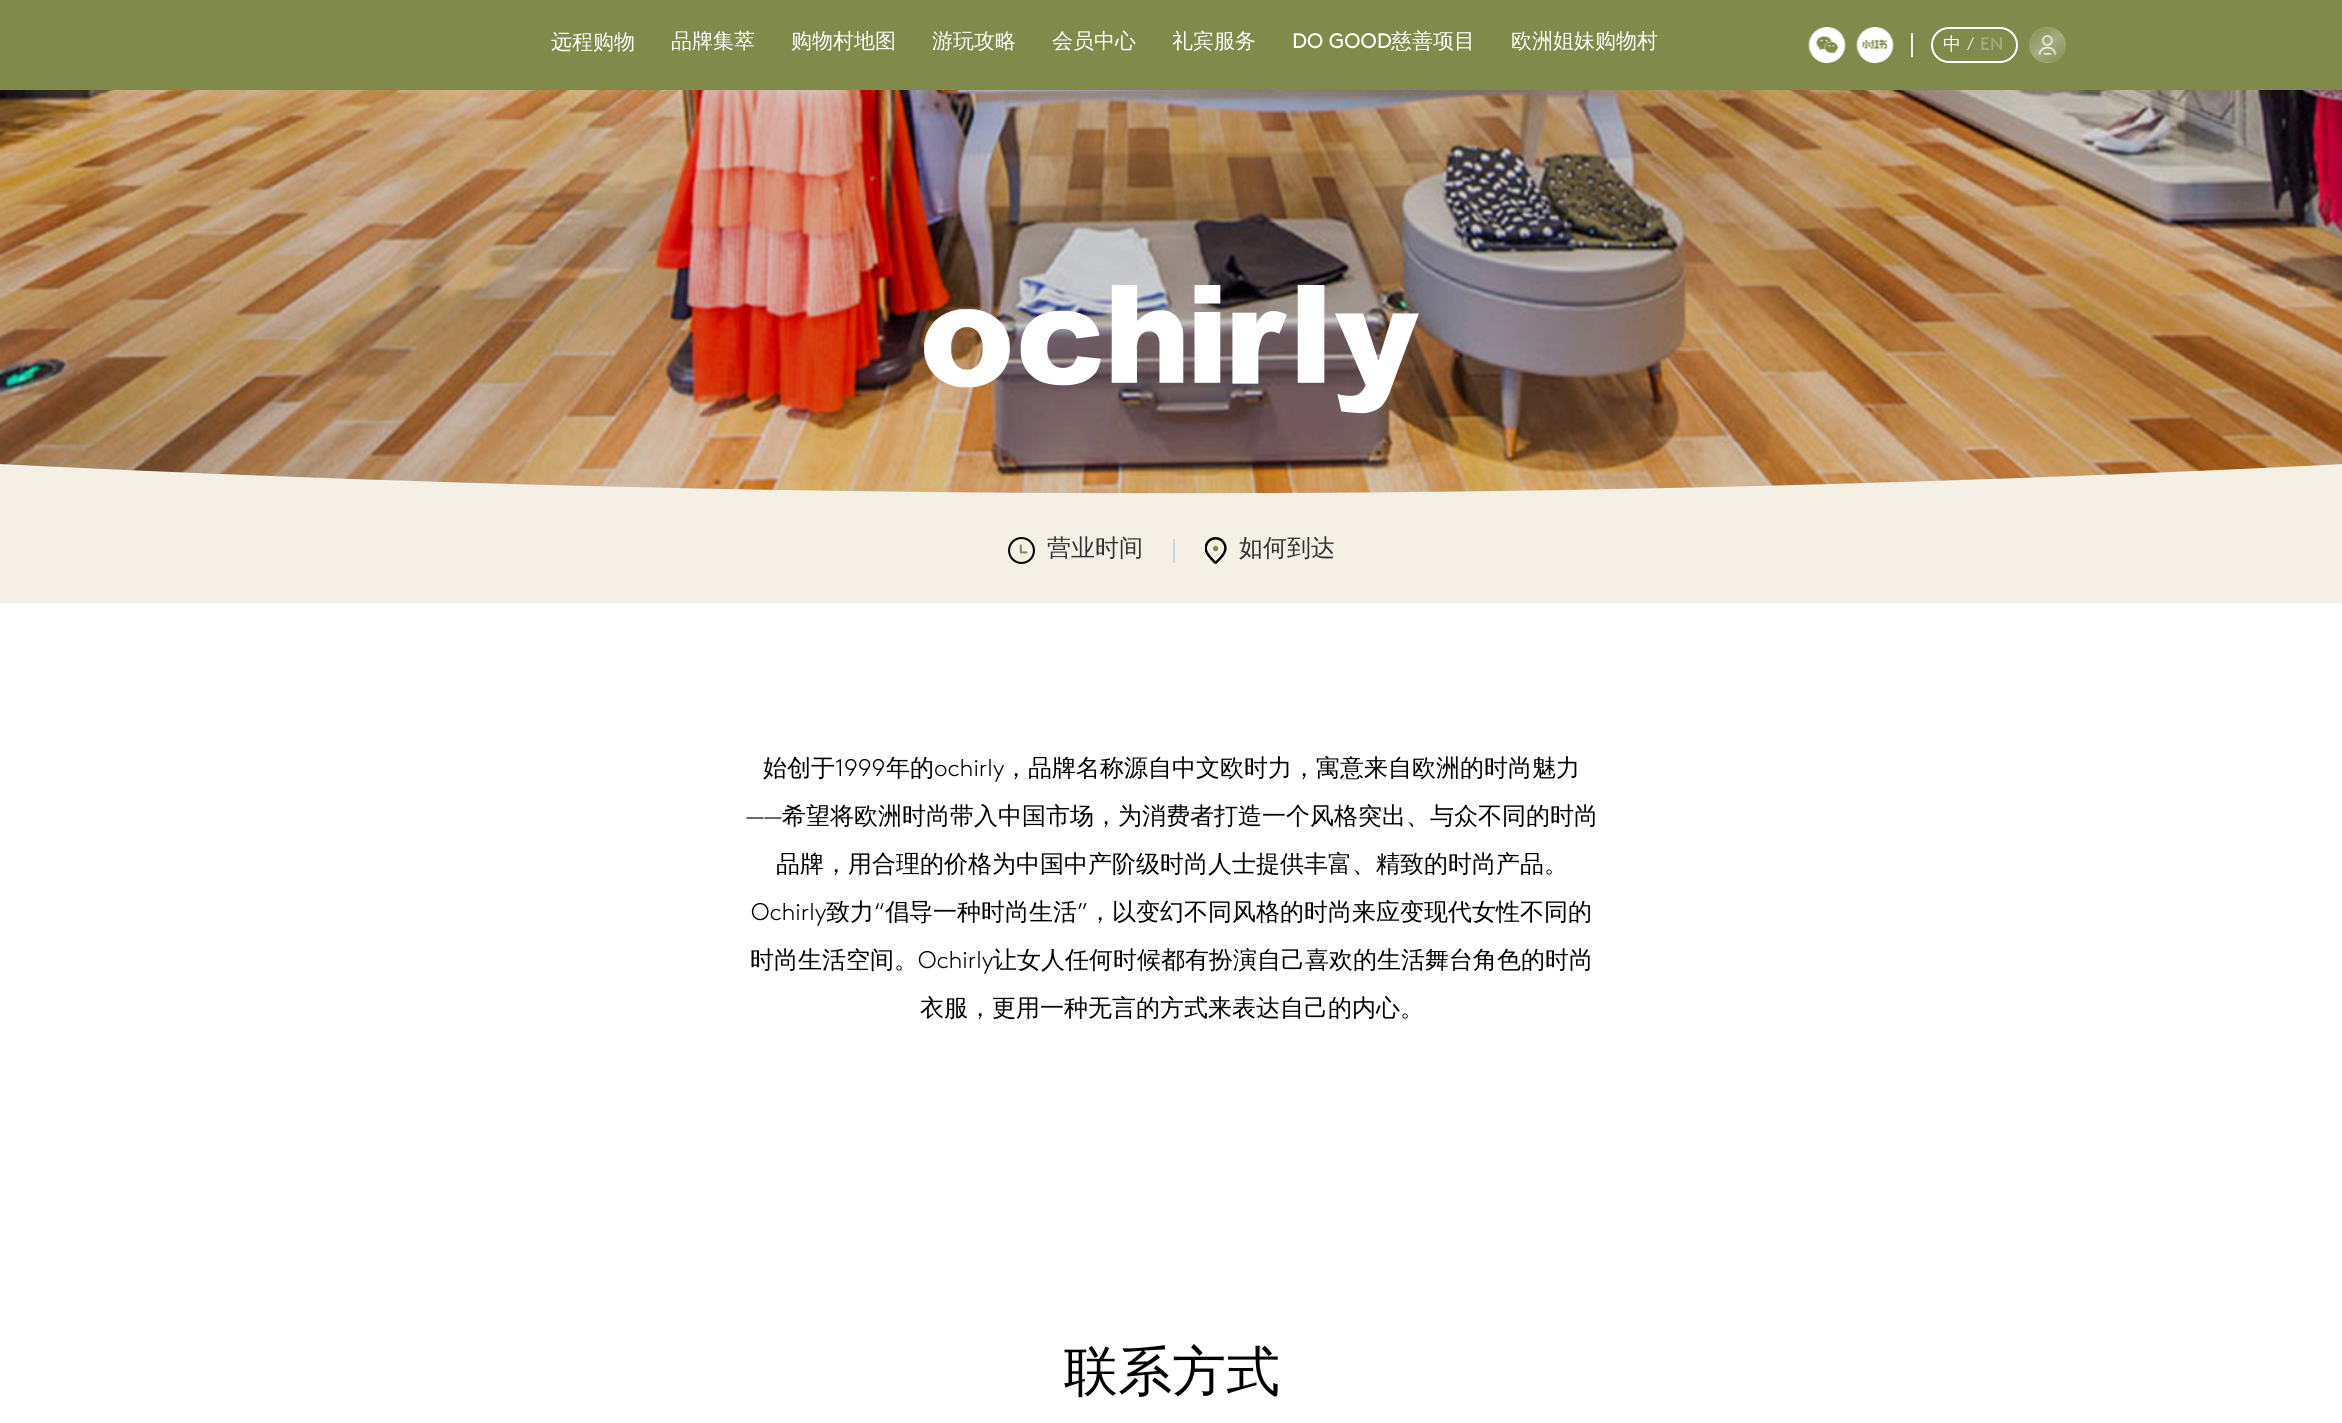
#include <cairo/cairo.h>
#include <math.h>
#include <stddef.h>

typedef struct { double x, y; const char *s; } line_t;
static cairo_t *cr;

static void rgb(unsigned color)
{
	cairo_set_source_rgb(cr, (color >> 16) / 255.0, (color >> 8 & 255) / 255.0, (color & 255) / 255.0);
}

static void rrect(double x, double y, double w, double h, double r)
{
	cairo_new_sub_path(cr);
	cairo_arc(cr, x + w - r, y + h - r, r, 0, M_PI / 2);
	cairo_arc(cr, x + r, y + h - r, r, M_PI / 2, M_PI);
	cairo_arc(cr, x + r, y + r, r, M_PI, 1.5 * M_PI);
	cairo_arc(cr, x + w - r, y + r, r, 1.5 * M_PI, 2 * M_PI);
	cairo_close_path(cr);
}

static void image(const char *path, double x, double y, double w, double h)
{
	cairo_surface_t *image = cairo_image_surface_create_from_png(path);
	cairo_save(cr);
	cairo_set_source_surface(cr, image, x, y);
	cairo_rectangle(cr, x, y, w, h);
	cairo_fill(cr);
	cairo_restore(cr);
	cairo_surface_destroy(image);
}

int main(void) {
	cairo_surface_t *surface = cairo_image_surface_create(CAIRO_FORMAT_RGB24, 2342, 1423);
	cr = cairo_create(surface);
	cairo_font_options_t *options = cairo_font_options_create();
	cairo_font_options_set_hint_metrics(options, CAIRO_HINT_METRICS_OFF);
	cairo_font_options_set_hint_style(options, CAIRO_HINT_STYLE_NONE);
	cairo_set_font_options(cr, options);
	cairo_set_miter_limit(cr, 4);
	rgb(0xffffff);
	cairo_paint(cr);
	rgb(0x7f8a4b);
	cairo_rectangle(cr, 0, 0, 2342, 90);
	cairo_fill(cr);
	image("img/1.png", 1808, 27, 38, 36);
	image("img/2.png", 1856, 27, 38, 36);
	rgb(0xf2f2f2);
	cairo_rectangle(cr, 1911, 33, 2, 24);
	cairo_fill(cr);
	rrect(1932, 28, 85, 34, 17);
	rgb(0xffffff);
	cairo_stroke(cr);
	image("img/3.png", 2029, 27, 37, 36);
	image("img/4.png", 0, 90, 2342, 404);
	image("img/5.png", 924, 285, 495, 129);
	rgb(0xf5f0e6);
	cairo_set_fill_rule(cr, CAIRO_FILL_RULE_EVEN_ODD);
	cairo_new_path(cr);
	cairo_move_to(cr, -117, 458);
	cairo_curve_to(cr, 741, 505, 1602, 505, 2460, 458);
	cairo_line_to(cr, 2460, 499);
	cairo_line_to(cr, -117, 499);
	cairo_close_path(cr);
	cairo_fill(cr);
	cairo_rectangle(cr, 0, 499, 2342, 104);
	cairo_fill(cr);
	image("img/6.png", 1008, 537, 27, 27);
	rgb(0xd1d5db);
	cairo_rectangle(cr, 1173, 539, 2, 24);
	cairo_fill(cr);
	image("img/7.png", 1205, 537, 22, 27);
	cairo_select_font_face(cr, "WenQuanYi Zen Hei Medium", CAIRO_FONT_SLANT_NORMAL, CAIRO_FONT_WEIGHT_NORMAL);
	cairo_set_font_size(cr, 21);
	rgb(0xffffff);
	{
		static const line_t items[] = {
			{551, 49, "远程购物"},
			{671, 48, "品牌集萃"},
			{791, 48, "购物村地图"},
			{932, 48, "游玩攻略"},
			{1052, 48, "会员中心"},
			{1172, 48, "礼宾服务"},
		};
		for (size_t i = 0; i < sizeof items / sizeof *items; i++) {
			cairo_move_to(cr, items[i].x, items[i].y);
			cairo_show_text(cr, items[i].s);
		}
	}
	cairo_select_font_face(cr, "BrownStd", CAIRO_FONT_SLANT_NORMAL, CAIRO_FONT_WEIGHT_NORMAL);
	cairo_move_to(cr, 1292, 48);
	cairo_show_text(cr, "DO GOOD");
	cairo_select_font_face(cr, "WenQuanYi Zen Hei Medium", CAIRO_FONT_SLANT_NORMAL, CAIRO_FONT_WEIGHT_NORMAL);
	cairo_move_to(cr, 1391, 48);
	cairo_show_text(cr, "慈善项目");
	cairo_move_to(cr, 1511, 48);
	cairo_show_text(cr, "欧洲姐妹购物村");
	cairo_set_font_size(cr, 18);
	cairo_move_to(cr, 1943, 50);
	cairo_show_text(cr, "中");
	cairo_select_font_face(cr, "BrownStd Light", CAIRO_FONT_SLANT_NORMAL, CAIRO_FONT_WEIGHT_NORMAL);
	cairo_move_to(cr, 1967, 50);
	cairo_show_text(cr, "/");
	cairo_select_font_face(cr, "BrownStd", CAIRO_FONT_SLANT_NORMAL, CAIRO_FONT_WEIGHT_NORMAL);
	rgb(0xa5ad81);
	cairo_move_to(cr, 1980, 50);
	cairo_show_text(cr, "EN");
	cairo_select_font_face(cr, "WenQuanYi Zen Hei Medium", CAIRO_FONT_SLANT_NORMAL, CAIRO_FONT_WEIGHT_NORMAL);
	cairo_set_font_size(cr, 24);
	rgb(0x313131);
	cairo_move_to(cr, 1047, 556);
	cairo_show_text(cr, "营业时间");
	cairo_move_to(cr, 1239, 556);
	cairo_show_text(cr, "如何到达");
	rgb(0x000000);
	cairo_move_to(cr, 763, 776);
	cairo_show_text(cr, "始创于");
	cairo_select_font_face(cr, "BrownStd Light", CAIRO_FONT_SLANT_NORMAL, CAIRO_FONT_WEIGHT_NORMAL);
	cairo_move_to(cr, 835, 776);
	cairo_show_text(cr, "1999");
	cairo_select_font_face(cr, "WenQuanYi Zen Hei Medium", CAIRO_FONT_SLANT_NORMAL, CAIRO_FONT_WEIGHT_NORMAL);
	cairo_move_to(cr, 886, 776);
	cairo_show_text(cr, "年的");
	cairo_select_font_face(cr, "BrownStd Light", CAIRO_FONT_SLANT_NORMAL, CAIRO_FONT_WEIGHT_NORMAL);
	cairo_move_to(cr, 934, 776);
	cairo_show_text(cr, "ochirly");
	cairo_select_font_face(cr, "WenQuanYi Zen Hei Medium", CAIRO_FONT_SLANT_NORMAL, CAIRO_FONT_WEIGHT_NORMAL);
	cairo_move_to(cr, 1004, 776);
	cairo_show_text(cr, "，品牌名称源自中文欧时力，寓意来自欧洲的时尚魅力");
	cairo_select_font_face(cr, "BrownStd Light", CAIRO_FONT_SLANT_NORMAL, CAIRO_FONT_WEIGHT_NORMAL);
	cairo_move_to(cr, 746, 824);
	cairo_show_text(cr, "——");
	cairo_select_font_face(cr, "WenQuanYi Zen Hei Medium", CAIRO_FONT_SLANT_NORMAL, CAIRO_FONT_WEIGHT_NORMAL);
	cairo_move_to(cr, 782, 824);
	cairo_show_text(cr, "希望将欧洲时尚带入中国市场，为消费者打造一个风格突出、与众不同的时尚");
	cairo_move_to(cr, 776, 872);
	cairo_show_text(cr, "品牌，用合理的价格为中国中产阶级时尚人士提供丰富、精致的时尚产品。");
	cairo_select_font_face(cr, "BrownStd Light", CAIRO_FONT_SLANT_NORMAL, CAIRO_FONT_WEIGHT_NORMAL);
	cairo_move_to(cr, 751, 920);
	cairo_show_text(cr, "Ochirly");
	cairo_select_font_face(cr, "WenQuanYi Zen Hei Medium", CAIRO_FONT_SLANT_NORMAL, CAIRO_FONT_WEIGHT_NORMAL);
	cairo_move_to(cr, 826, 920);
	cairo_show_text(cr, "致力");
	cairo_select_font_face(cr, "BrownStd Light", CAIRO_FONT_SLANT_NORMAL, CAIRO_FONT_WEIGHT_NORMAL);
	cairo_move_to(cr, 874, 920);
	cairo_show_text(cr, "“");
	cairo_select_font_face(cr, "WenQuanYi Zen Hei Medium", CAIRO_FONT_SLANT_NORMAL, CAIRO_FONT_WEIGHT_NORMAL);
	cairo_move_to(cr, 885, 920);
	cairo_show_text(cr, "倡导一种时尚生活");
	cairo_select_font_face(cr, "BrownStd Light", CAIRO_FONT_SLANT_NORMAL, CAIRO_FONT_WEIGHT_NORMAL);
	cairo_move_to(cr, 1077, 920);
	cairo_show_text(cr, "”");
	cairo_select_font_face(cr, "WenQuanYi Zen Hei Medium", CAIRO_FONT_SLANT_NORMAL, CAIRO_FONT_WEIGHT_NORMAL);
	cairo_move_to(cr, 1088, 920);
	cairo_show_text(cr, "，以变幻不同风格的时尚来应变现代女性不同的");
	cairo_move_to(cr, 750, 968);
	cairo_show_text(cr, "时尚生活空间。");
	cairo_select_font_face(cr, "BrownStd Light", CAIRO_FONT_SLANT_NORMAL, CAIRO_FONT_WEIGHT_NORMAL);
	cairo_move_to(cr, 918, 968);
	cairo_show_text(cr, "Ochirly");
	cairo_select_font_face(cr, "WenQuanYi Zen Hei Medium", CAIRO_FONT_SLANT_NORMAL, CAIRO_FONT_WEIGHT_NORMAL);
	cairo_move_to(cr, 993, 968);
	cairo_show_text(cr, "让女人任何时候都有扮演自己喜欢的生活舞台角色的时尚");
	cairo_move_to(cr, 920, 1016);
	cairo_show_text(cr, "衣服，更用一种无言的方式来表达自己的内心。");
	cairo_set_font_size(cr, 54);
	cairo_move_to(cr, 1064, 1390);
	cairo_show_text(cr, "联系方式");
	cairo_surface_write_to_png(surface, "page.png");
	cairo_font_options_destroy(options);
	cairo_destroy(cr);
	cairo_surface_destroy(surface);
	return 0;
}
